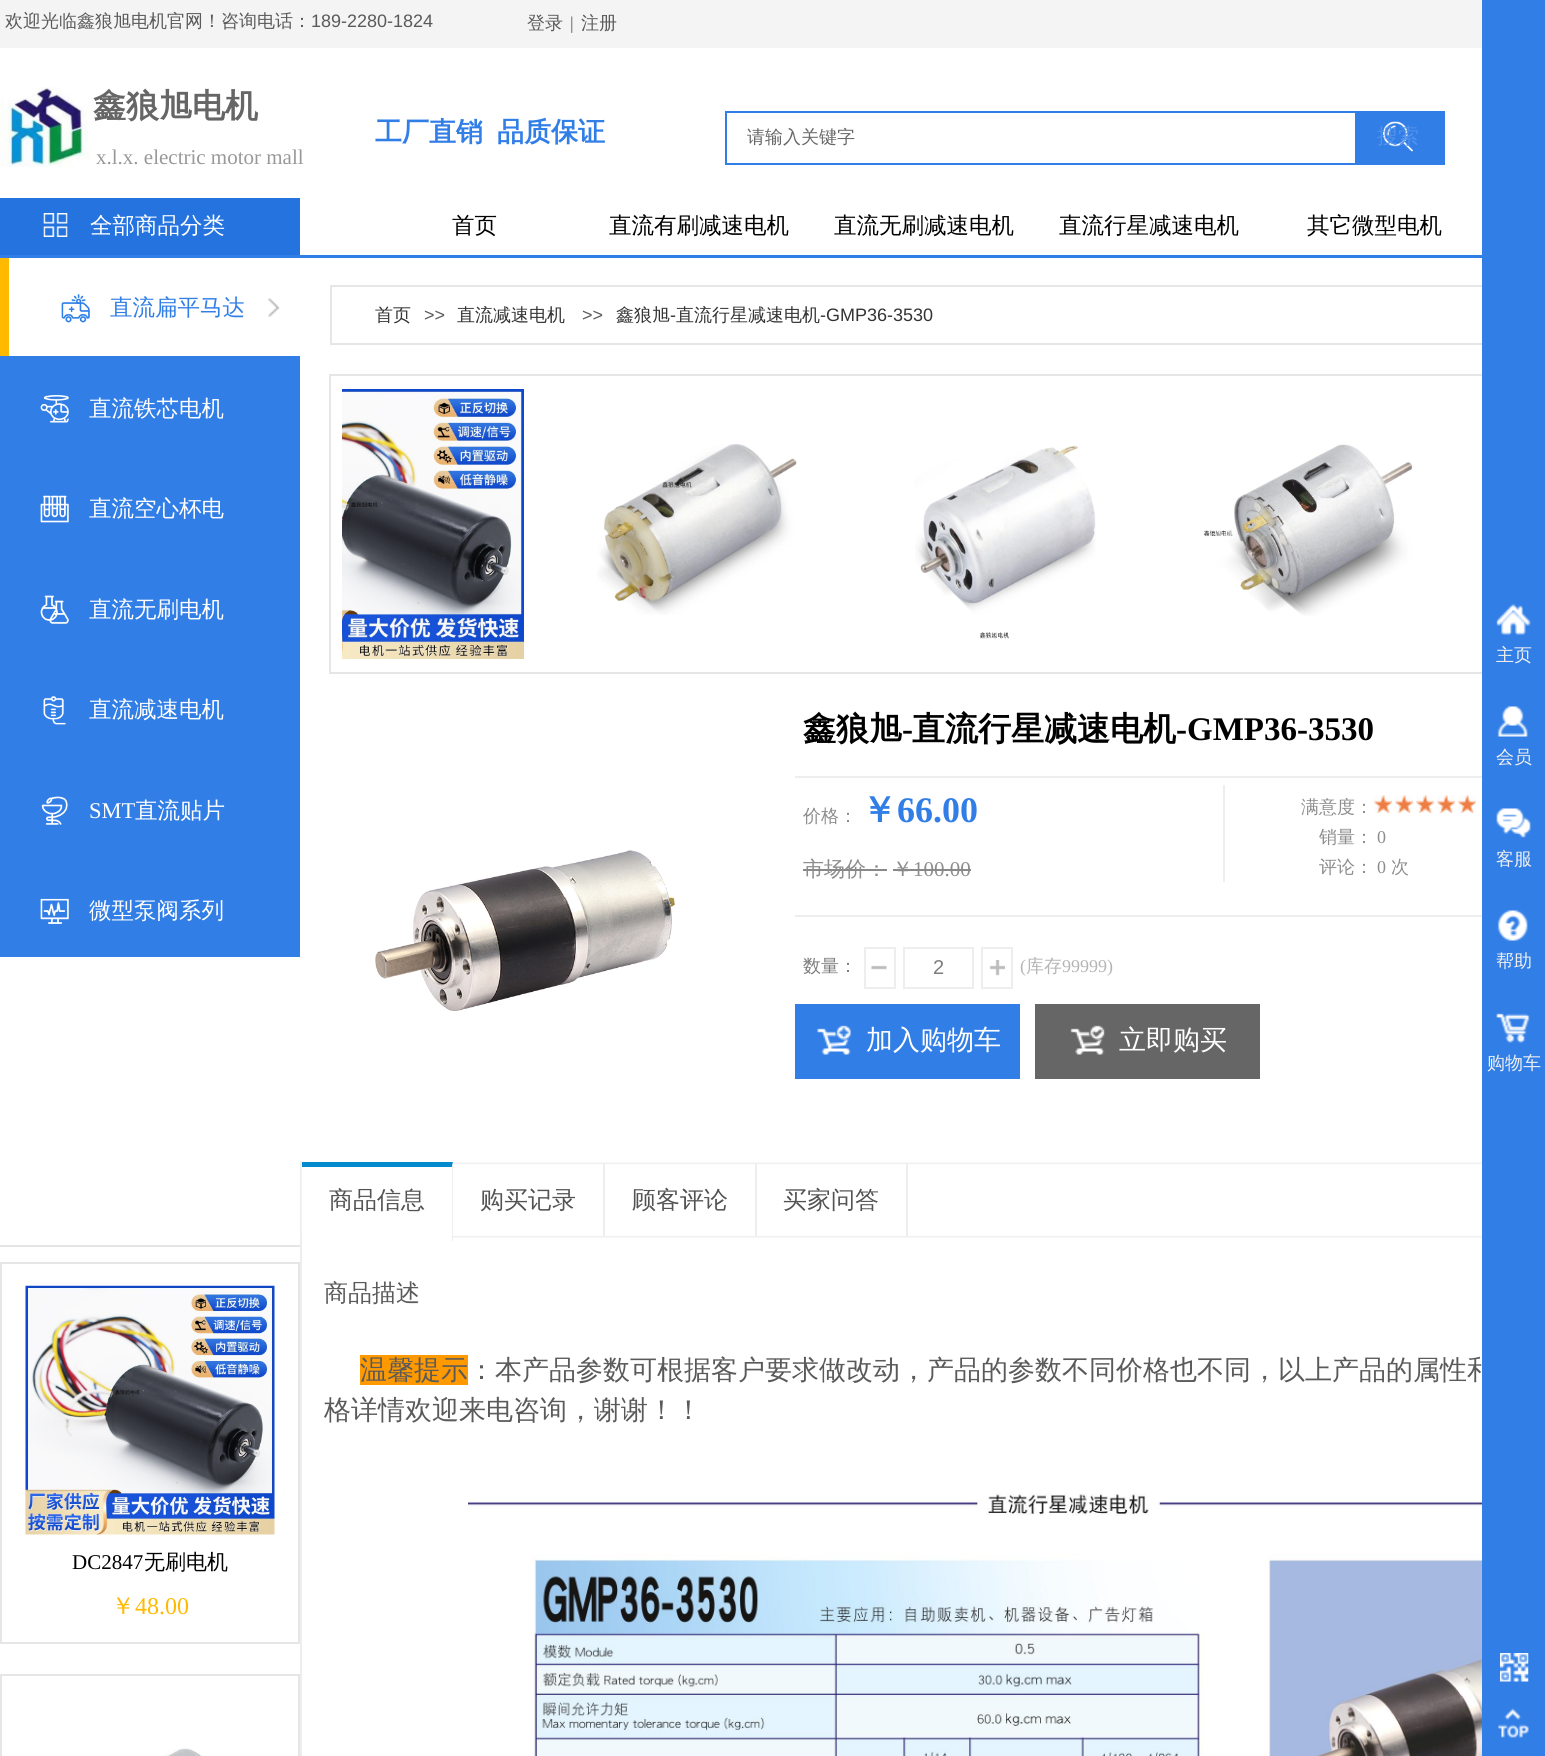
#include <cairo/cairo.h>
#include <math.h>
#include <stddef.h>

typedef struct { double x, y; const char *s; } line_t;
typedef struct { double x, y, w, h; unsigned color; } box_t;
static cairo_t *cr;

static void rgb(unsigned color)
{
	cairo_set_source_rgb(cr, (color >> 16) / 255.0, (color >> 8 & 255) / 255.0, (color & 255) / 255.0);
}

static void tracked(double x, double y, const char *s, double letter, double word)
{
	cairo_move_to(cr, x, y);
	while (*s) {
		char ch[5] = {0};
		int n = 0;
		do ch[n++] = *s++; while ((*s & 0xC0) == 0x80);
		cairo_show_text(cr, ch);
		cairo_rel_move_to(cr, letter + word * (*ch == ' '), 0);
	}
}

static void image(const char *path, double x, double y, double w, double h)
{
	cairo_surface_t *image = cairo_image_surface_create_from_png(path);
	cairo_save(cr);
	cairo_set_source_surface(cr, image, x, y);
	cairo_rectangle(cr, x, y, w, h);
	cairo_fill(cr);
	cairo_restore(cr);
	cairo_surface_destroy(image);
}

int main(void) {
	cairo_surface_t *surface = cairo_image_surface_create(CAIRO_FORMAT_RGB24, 1545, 1756);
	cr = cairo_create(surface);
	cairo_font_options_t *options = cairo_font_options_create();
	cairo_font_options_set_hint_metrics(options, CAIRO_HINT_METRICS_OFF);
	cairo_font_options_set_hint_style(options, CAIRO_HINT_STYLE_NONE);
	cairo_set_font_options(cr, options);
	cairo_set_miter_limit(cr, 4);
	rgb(0xffffff);
	cairo_paint(cr);
	rgb(0xf4f4f4);
	cairo_rectangle(cr, 0, 0, 1482, 48);
	cairo_fill(cr);
	image("img/1.png", 0, 87, 90, 80);
	cairo_rectangle(cr, 726, 112, 718, 52);
	rgb(0x317ee7);
	cairo_stroke(cr);
	cairo_rectangle(cr, 1355, 113, 88, 50);
	cairo_fill(cr);
	image("img/2.png", 1383, 121, 30, 31);
	rgb(0x2473df);
	cairo_rectangle(cr, 0, 198, 300, 57);
	cairo_fill(cr);
	image("img/3.png", 43, 213, 25, 24);
	{
		static const box_t items[] = {
			{0, 255, 1482, 3, 0x317ee7},
			{0, 356, 300, 601, 0x317ee7},
			{0, 258, 9, 98, 0xffba00},
		};
		for (size_t i = 0; i < sizeof items / sizeof *items; i++) {
			rgb(items[i].color);
			cairo_rectangle(cr, items[i].x, items[i].y, items[i].w, items[i].h);
			cairo_fill(cr);
		}
	}
	image("img/4.png", 61, 294, 29, 29);
	image("img/5.png", 268, 298, 12, 19);
	image("img/6.png", 40, 395, 29, 28);
	image("img/7.png", 40, 495, 29, 28);
	image("img/8.png", 40, 595, 29, 29);
	image("img/9.png", 43, 696, 23, 29);
	image("img/10.png", 41, 796, 27, 29);
	image("img/11.png", 40, 898, 29, 26);
	cairo_rectangle(cr, 331, 286, 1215, 58);
	rgb(0xe6e6e6);
	cairo_stroke(cr);
	cairo_rectangle(cr, 330, 375, 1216, 298);
	cairo_stroke(cr);
	image("img/12.png", 342, 389, 182, 270);
	image("img/13.png", 597, 444, 200, 171);
	image("img/14.png", 915, 445, 181, 194);
	image("img/15.png", 1204, 444, 209, 172);
	image("img/16.png", 375, 850, 300, 161);
	{
		static const box_t items[] = {
			{795, 776, 687, 2, 0xeeeeee},
			{795, 915, 687, 2, 0xeeeeee},
			{1223, 785, 2, 97, 0xeeeeee},
		};
		for (size_t i = 0; i < sizeof items / sizeof *items; i++) {
			rgb(items[i].color);
			cairo_rectangle(cr, items[i].x, items[i].y, items[i].w, items[i].h);
			cairo_fill(cr);
		}
	}
	image("img/17.png", 1374, 795, 18, 18);
	image("img/17.png", 1395, 795, 18, 18);
	image("img/17.png", 1416, 795, 18, 18);
	image("img/17.png", 1437, 795, 18, 18);
	image("img/17.png", 1458, 795, 18, 18);
	image("img/18.png", 871, 965, 16, 5);
	cairo_rectangle(cr, 865, 948, 30, 40);
	cairo_stroke(cr);
	cairo_rectangle(cr, 904, 948, 69, 40);
	cairo_stroke(cr);
	image("img/19.png", 989, 960, 16, 16);
	cairo_rectangle(cr, 982, 948, 30, 40);
	cairo_stroke(cr);
	rgb(0x317ee7);
	cairo_rectangle(cr, 795, 1004, 225, 75);
	cairo_fill(cr);
	image("img/20.png", 817, 1025, 34, 30);
	rgb(0x666666);
	cairo_rectangle(cr, 1035, 1004, 225, 75);
	cairo_fill(cr);
	image("img/21.png", 1070, 1025, 35, 30);
	rgb(0xeeeeee);
	cairo_rectangle(cr, 300, 1161, 2, 595);
	cairo_fill(cr);
	image("img/22.png", 301, 1161, 1181, 77);
	rgb(0xffffff);
	cairo_rectangle(cr, 302, 1163, 151, 75);
	cairo_fill(cr);
	rgb(0x048bcd);
	cairo_new_path(cr);
	cairo_move_to(cr, 302, 1162);
	cairo_line_to(cr, 453, 1162);
	cairo_line_to(cr, 452, 1167);
	cairo_line_to(cr, 302, 1167);
	cairo_close_path(cr);
	cairo_fill(cr);
	cairo_save(cr);
	cairo_rectangle(cr, 302, 1161, 1243, 80);
	cairo_clip(cr);
	rgb(0xeeeeee);
	cairo_new_path(cr);
	cairo_move_to(cr, 453, 1162);
	cairo_line_to(cr, 453, 1245);
	cairo_line_to(cr, 452, 1245);
	cairo_line_to(cr, 452, 1167);
	cairo_close_path(cr);
	cairo_fill(cr);
	cairo_restore(cr);
	{
		static const box_t items[] = {
			{603, 1163, 2, 73, 0xeeeeee},
			{755, 1163, 2, 73, 0xeeeeee},
			{906, 1163, 2, 73, 0xeeeeee},
			{360, 1355, 108, 30, 0xff9900},
		};
		for (size_t i = 0; i < sizeof items / sizeof *items; i++) {
			rgb(items[i].color);
			cairo_rectangle(cr, items[i].x, items[i].y, items[i].w, items[i].h);
			cairo_fill(cr);
		}
	}
	image("img/23.png", 468, 1493, 1014, 263);
	rgb(0xe5e5e5);
	cairo_rectangle(cr, 0, 1245, 300, 2);
	cairo_fill(cr);
	cairo_rectangle(cr, 1, 1263, 298, 380);
	rgb(0xe6e6e6);
	cairo_stroke(cr);
	image("img/24.png", 25, 1285, 250, 250);
	cairo_rectangle(cr, 1, 1675, 298, 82);
	cairo_stroke(cr);
	image("img/25.png", 164, 1748, 38, 8);
	cairo_select_font_face(cr, "WenQuanYi Zen Hei Medium", CAIRO_FONT_SLANT_NORMAL, CAIRO_FONT_WEIGHT_NORMAL);
	cairo_set_font_size(cr, 18);
	rgb(0x5a5a5a);
	cairo_move_to(cr, 5, 27);
	cairo_show_text(cr, "欢迎光临鑫狼旭电机官网！咨询电话：");
	cairo_select_font_face(cr, "Liberation Sans", CAIRO_FONT_SLANT_NORMAL, CAIRO_FONT_WEIGHT_NORMAL);
	cairo_move_to(cr, 311, 27);
	cairo_show_text(cr, "189-2280-1824");
	cairo_select_font_face(cr, "WenQuanYi Zen Hei Medium", CAIRO_FONT_SLANT_NORMAL, CAIRO_FONT_WEIGHT_NORMAL);
	cairo_move_to(cr, 527, 29);
	cairo_show_text(cr, "登录");
	cairo_select_font_face(cr, "Liberation Serif", CAIRO_FONT_SLANT_NORMAL, CAIRO_FONT_WEIGHT_NORMAL);
	cairo_move_to(cr, 570, 29);
	cairo_show_text(cr, "|");
	cairo_select_font_face(cr, "WenQuanYi Zen Hei Medium", CAIRO_FONT_SLANT_NORMAL, CAIRO_FONT_WEIGHT_NORMAL);
	cairo_move_to(cr, 581, 29);
	cairo_show_text(cr, "注册");
	cairo_select_font_face(cr, "WenQuanYi Zen Hei", CAIRO_FONT_SLANT_NORMAL, CAIRO_FONT_WEIGHT_BOLD);
	cairo_set_font_size(cr, 33);
	rgb(0x666666);
	cairo_move_to(cr, 93, 117);
	cairo_show_text(cr, "鑫狼旭电机");
	cairo_set_font_size(cr, 27);
	rgb(0x317ee7);
	cairo_move_to(cr, 375, 141);
	cairo_show_text(cr, "工厂直销");
	cairo_move_to(cr, 497, 141);
	cairo_show_text(cr, "品质保证");
	cairo_select_font_face(cr, "WenQuanYi Zen Hei Medium", CAIRO_FONT_SLANT_NORMAL, CAIRO_FONT_WEIGHT_NORMAL);
	cairo_set_font_size(cr, 18);
	rgb(0x666666);
	cairo_move_to(cr, 747, 143);
	cairo_show_text(cr, "请输入关键字");
	cairo_set_font_size(cr, 21);
	rgb(0x5192eb);
	cairo_move_to(cr, 1377, 143);
	cairo_show_text(cr, "搜索");
	cairo_select_font_face(cr, "Liberation Serif", CAIRO_FONT_SLANT_NORMAL, CAIRO_FONT_WEIGHT_NORMAL);
	rgb(0x999999);
	cairo_move_to(cr, 96, 164);
	cairo_show_text(cr, "x.l.x. electric motor mall");
	cairo_select_font_face(cr, "WenQuanYi Zen Hei Medium", CAIRO_FONT_SLANT_NORMAL, CAIRO_FONT_WEIGHT_NORMAL);
	cairo_set_font_size(cr, 22.5);
	rgb(0xffffff);
	cairo_move_to(cr, 90, 233);
	cairo_show_text(cr, "全部商品分类");
	rgb(0x000000);
	{
		static const line_t items[] = {
			{452, 233, "首页"},
			{609, 233, "直流有刷减速电机"},
			{834, 233, "直流无刷减速电机"},
			{1059, 233, "直流行星减速电机"},
			{1307, 233, "其它微型电机"},
		};
		for (size_t i = 0; i < sizeof items / sizeof *items; i++) {
			cairo_move_to(cr, items[i].x, items[i].y);
			cairo_show_text(cr, items[i].s);
		}
	}
	rgb(0x317ee7);
	cairo_move_to(cr, 110, 315);
	cairo_show_text(cr, "直流扁平马达");
	rgb(0xffffff);
	{
		static const line_t items[] = {
			{89, 416, "直流铁芯电机"},
			{89, 516, "直流空心杯电"},
			{89, 617, "直流无刷电机"},
			{89, 717, "直流减速电机"},
		};
		for (size_t i = 0; i < sizeof items / sizeof *items; i++) {
			cairo_move_to(cr, items[i].x, items[i].y);
			cairo_show_text(cr, items[i].s);
		}
	}
	cairo_select_font_face(cr, "Liberation Serif", CAIRO_FONT_SLANT_NORMAL, CAIRO_FONT_WEIGHT_NORMAL);
	cairo_move_to(cr, 89, 818);
	cairo_show_text(cr, "SMT");
	cairo_select_font_face(cr, "WenQuanYi Zen Hei Medium", CAIRO_FONT_SLANT_NORMAL, CAIRO_FONT_WEIGHT_NORMAL);
	cairo_move_to(cr, 135, 818);
	cairo_show_text(cr, "直流贴片");
	cairo_move_to(cr, 89, 918);
	cairo_show_text(cr, "微型泵阀系列");
	cairo_set_font_size(cr, 18);
	rgb(0x333333);
	cairo_move_to(cr, 375, 321);
	cairo_show_text(cr, "首页");
	cairo_select_font_face(cr, "Liberation Sans", CAIRO_FONT_SLANT_NORMAL, CAIRO_FONT_WEIGHT_NORMAL);
	rgb(0x5a5a5a);
	cairo_move_to(cr, 424, 321);
	cairo_show_text(cr, ">>");
	cairo_select_font_face(cr, "WenQuanYi Zen Hei Medium", CAIRO_FONT_SLANT_NORMAL, CAIRO_FONT_WEIGHT_NORMAL);
	rgb(0x333333);
	cairo_move_to(cr, 457, 321);
	cairo_show_text(cr, "直流减速电机");
	cairo_select_font_face(cr, "Liberation Sans", CAIRO_FONT_SLANT_NORMAL, CAIRO_FONT_WEIGHT_NORMAL);
	rgb(0x5a5a5a);
	cairo_move_to(cr, 582, 321);
	cairo_show_text(cr, ">>");
	cairo_select_font_face(cr, "WenQuanYi Zen Hei Medium", CAIRO_FONT_SLANT_NORMAL, CAIRO_FONT_WEIGHT_NORMAL);
	rgb(0x333333);
	cairo_move_to(cr, 616, 321);
	cairo_show_text(cr, "鑫狼旭");
	cairo_select_font_face(cr, "Liberation Sans", CAIRO_FONT_SLANT_NORMAL, CAIRO_FONT_WEIGHT_NORMAL);
	cairo_move_to(cr, 670, 321);
	cairo_show_text(cr, "-");
	cairo_select_font_face(cr, "WenQuanYi Zen Hei Medium", CAIRO_FONT_SLANT_NORMAL, CAIRO_FONT_WEIGHT_NORMAL);
	cairo_move_to(cr, 676, 321);
	cairo_show_text(cr, "直流行星减速电机");
	cairo_select_font_face(cr, "Liberation Sans", CAIRO_FONT_SLANT_NORMAL, CAIRO_FONT_WEIGHT_NORMAL);
	cairo_move_to(cr, 820, 321);
	cairo_show_text(cr, "-GMP36-3530");
	cairo_select_font_face(cr, "WenQuanYi Zen Hei", CAIRO_FONT_SLANT_NORMAL, CAIRO_FONT_WEIGHT_BOLD);
	cairo_set_font_size(cr, 33);
	rgb(0x000000);
	cairo_move_to(cr, 803, 740);
	cairo_show_text(cr, "鑫狼旭");
	cairo_select_font_face(cr, "Liberation Serif", CAIRO_FONT_SLANT_NORMAL, CAIRO_FONT_WEIGHT_BOLD);
	cairo_move_to(cr, 902, 740);
	cairo_show_text(cr, "-");
	cairo_select_font_face(cr, "WenQuanYi Zen Hei", CAIRO_FONT_SLANT_NORMAL, CAIRO_FONT_WEIGHT_BOLD);
	cairo_move_to(cr, 912, 740);
	cairo_show_text(cr, "直流行星减速电机");
	cairo_select_font_face(cr, "Liberation Serif", CAIRO_FONT_SLANT_NORMAL, CAIRO_FONT_WEIGHT_BOLD);
	cairo_move_to(cr, 1176, 740);
	cairo_show_text(cr, "-GMP36-3530");
	cairo_select_font_face(cr, "WenQuanYi Zen Hei Medium", CAIRO_FONT_SLANT_NORMAL, CAIRO_FONT_WEIGHT_NORMAL);
	cairo_set_font_size(cr, 18);
	rgb(0x8d8d8d);
	cairo_move_to(cr, 803, 822);
	cairo_show_text(cr, "价格：");
	cairo_select_font_face(cr, "WenQuanYi Zen Hei", CAIRO_FONT_SLANT_NORMAL, CAIRO_FONT_WEIGHT_BOLD);
	cairo_set_font_size(cr, 36);
	rgb(0x317ee7);
	cairo_move_to(cr, 861, 822);
	cairo_show_text(cr, "￥");
	cairo_select_font_face(cr, "Liberation Serif", CAIRO_FONT_SLANT_NORMAL, CAIRO_FONT_WEIGHT_BOLD);
	cairo_move_to(cr, 897, 822);
	cairo_show_text(cr, "66.00");
	cairo_select_font_face(cr, "WenQuanYi Zen Hei Medium", CAIRO_FONT_SLANT_NORMAL, CAIRO_FONT_WEIGHT_NORMAL);
	cairo_set_font_size(cr, 21);
	rgb(0x8d8d8d);
	cairo_move_to(cr, 803, 876);
	cairo_show_text(cr, "市场价：");
	rgb(0x898989);
	cairo_rectangle(cr, 803, 869, 84, 2);
	cairo_fill(cr);
	rgb(0x8d8d8d);
	cairo_move_to(cr, 892, 876);
	cairo_show_text(cr, "￥");
	cairo_select_font_face(cr, "Liberation Serif", CAIRO_FONT_SLANT_NORMAL, CAIRO_FONT_WEIGHT_NORMAL);
	cairo_move_to(cr, 913, 876);
	cairo_show_text(cr, "100.00");
	rgb(0x898989);
	cairo_rectangle(cr, 893, 869, 78, 2);
	cairo_fill(cr);
	cairo_select_font_face(cr, "WenQuanYi Zen Hei Medium", CAIRO_FONT_SLANT_NORMAL, CAIRO_FONT_WEIGHT_NORMAL);
	cairo_set_font_size(cr, 18);
	rgb(0x8d8d8d);
	cairo_move_to(cr, 1301, 813);
	cairo_show_text(cr, "满意度：");
	cairo_move_to(cr, 1319, 843);
	cairo_show_text(cr, "销量：");
	cairo_select_font_face(cr, "Liberation Serif", CAIRO_FONT_SLANT_NORMAL, CAIRO_FONT_WEIGHT_NORMAL);
	cairo_move_to(cr, 1377, 843);
	cairo_show_text(cr, "0");
	cairo_select_font_face(cr, "WenQuanYi Zen Hei Medium", CAIRO_FONT_SLANT_NORMAL, CAIRO_FONT_WEIGHT_NORMAL);
	cairo_move_to(cr, 1319, 873);
	cairo_show_text(cr, "评论：");
	cairo_select_font_face(cr, "Liberation Serif", CAIRO_FONT_SLANT_NORMAL, CAIRO_FONT_WEIGHT_NORMAL);
	cairo_move_to(cr, 1377, 873);
	cairo_show_text(cr, "0");
	cairo_select_font_face(cr, "WenQuanYi Zen Hei Medium", CAIRO_FONT_SLANT_NORMAL, CAIRO_FONT_WEIGHT_NORMAL);
	cairo_move_to(cr, 1391, 873);
	cairo_show_text(cr, "次");
	rgb(0x7d7d7d);
	cairo_move_to(cr, 803, 972);
	cairo_show_text(cr, "数量：");
	cairo_select_font_face(cr, "Liberation Sans", CAIRO_FONT_SLANT_NORMAL, CAIRO_FONT_WEIGHT_NORMAL);
	cairo_set_font_size(cr, 20);
	cairo_move_to(cr, 933, 974);
	cairo_show_text(cr, "2");
	cairo_select_font_face(cr, "Liberation Serif", CAIRO_FONT_SLANT_NORMAL, CAIRO_FONT_WEIGHT_NORMAL);
	cairo_set_font_size(cr, 18);
	rgb(0xb5b5b5);
	cairo_move_to(cr, 1020, 972);
	cairo_show_text(cr, "(");
	cairo_select_font_face(cr, "WenQuanYi Zen Hei Medium", CAIRO_FONT_SLANT_NORMAL, CAIRO_FONT_WEIGHT_NORMAL);
	cairo_move_to(cr, 1026, 972);
	cairo_show_text(cr, "库存");
	cairo_select_font_face(cr, "Liberation Serif", CAIRO_FONT_SLANT_NORMAL, CAIRO_FONT_WEIGHT_NORMAL);
	cairo_move_to(cr, 1062, 972);
	cairo_show_text(cr, "99999)");
	cairo_select_font_face(cr, "WenQuanYi Zen Hei Medium", CAIRO_FONT_SLANT_NORMAL, CAIRO_FONT_WEIGHT_NORMAL);
	cairo_set_font_size(cr, 27);
	rgb(0xffffff);
	cairo_move_to(cr, 866, 1049);
	cairo_show_text(cr, "加入购物车");
	cairo_move_to(cr, 1119, 1049);
	cairo_show_text(cr, "立即购买");
	cairo_set_font_size(cr, 24);
	rgb(0x535353);
	{
		static const line_t items[] = {
			{329, 1208, "商品信息"},
			{480, 1208, "购买记录"},
			{632, 1208, "顾客评论"},
			{783, 1208, "买家问答"},
		};
		for (size_t i = 0; i < sizeof items / sizeof *items; i++) {
			cairo_move_to(cr, items[i].x, items[i].y);
			cairo_show_text(cr, items[i].s);
		}
	}
	rgb(0x5a5a5a);
	cairo_move_to(cr, 324, 1301);
	cairo_show_text(cr, "商品描述");
	cairo_set_font_size(cr, 27);
	cairo_move_to(cr, 360, 1379);
	cairo_show_text(cr, "温馨提示");
	tracked(468, 1379, "：本产品参数可根据客户要求做改动，产品的参数不同价格也不同，以上产品的属性和", 0, -1);
	cairo_move_to(cr, 324, 1419);
	cairo_show_text(cr, "格详情欢迎来电咨询，谢谢！！");
	cairo_select_font_face(cr, "Liberation Serif", CAIRO_FONT_SLANT_NORMAL, CAIRO_FONT_WEIGHT_NORMAL);
	cairo_set_font_size(cr, 21);
	rgb(0x000000);
	cairo_move_to(cr, 72, 1569);
	cairo_show_text(cr, "DC2847");
	cairo_select_font_face(cr, "WenQuanYi Zen Hei Medium", CAIRO_FONT_SLANT_NORMAL, CAIRO_FONT_WEIGHT_NORMAL);
	cairo_move_to(cr, 144, 1569);
	cairo_show_text(cr, "无刷电机");
	cairo_set_font_size(cr, 24);
	rgb(0xffba00);
	cairo_move_to(cr, 111, 1614);
	cairo_show_text(cr, "￥");
	cairo_select_font_face(cr, "Liberation Serif", CAIRO_FONT_SLANT_NORMAL, CAIRO_FONT_WEIGHT_NORMAL);
	cairo_move_to(cr, 135, 1614);
	cairo_show_text(cr, "48.00");
	rgb(0x317ee7);
	cairo_rectangle(cr, 1482, 0, 63, 1756);
	cairo_fill(cr);
	image("img/26.png", 1496, 604, 35, 31);
	cairo_select_font_face(cr, "WenQuanYi Zen Hei Medium", CAIRO_FONT_SLANT_NORMAL, CAIRO_FONT_WEIGHT_NORMAL);
	cairo_set_font_size(cr, 18);
	rgb(0xefefef);
	cairo_move_to(cr, 1496, 661);
	cairo_show_text(cr, "主页");
	image("img/27.png", 1497, 706, 31, 31);
	cairo_move_to(cr, 1496, 763);
	cairo_show_text(cr, "会员");
	image("img/28.png", 1496, 808, 35, 30);
	cairo_move_to(cr, 1496, 865);
	cairo_show_text(cr, "客服");
	image("img/29.png", 1497, 910, 31, 31);
	cairo_move_to(cr, 1496, 967);
	cairo_show_text(cr, "帮助");
	image("img/30.png", 1496, 1013, 34, 30);
	cairo_move_to(cr, 1487, 1069);
	cairo_show_text(cr, "购物车");
	image("img/31.png", 1500, 1653, 29, 29);
	image("img/32.png", 1498, 1708, 31, 30);
	cairo_surface_write_to_png(surface, "page.png");
	cairo_font_options_destroy(options);
	cairo_destroy(cr);
	cairo_surface_destroy(surface);
	return 0;
}
